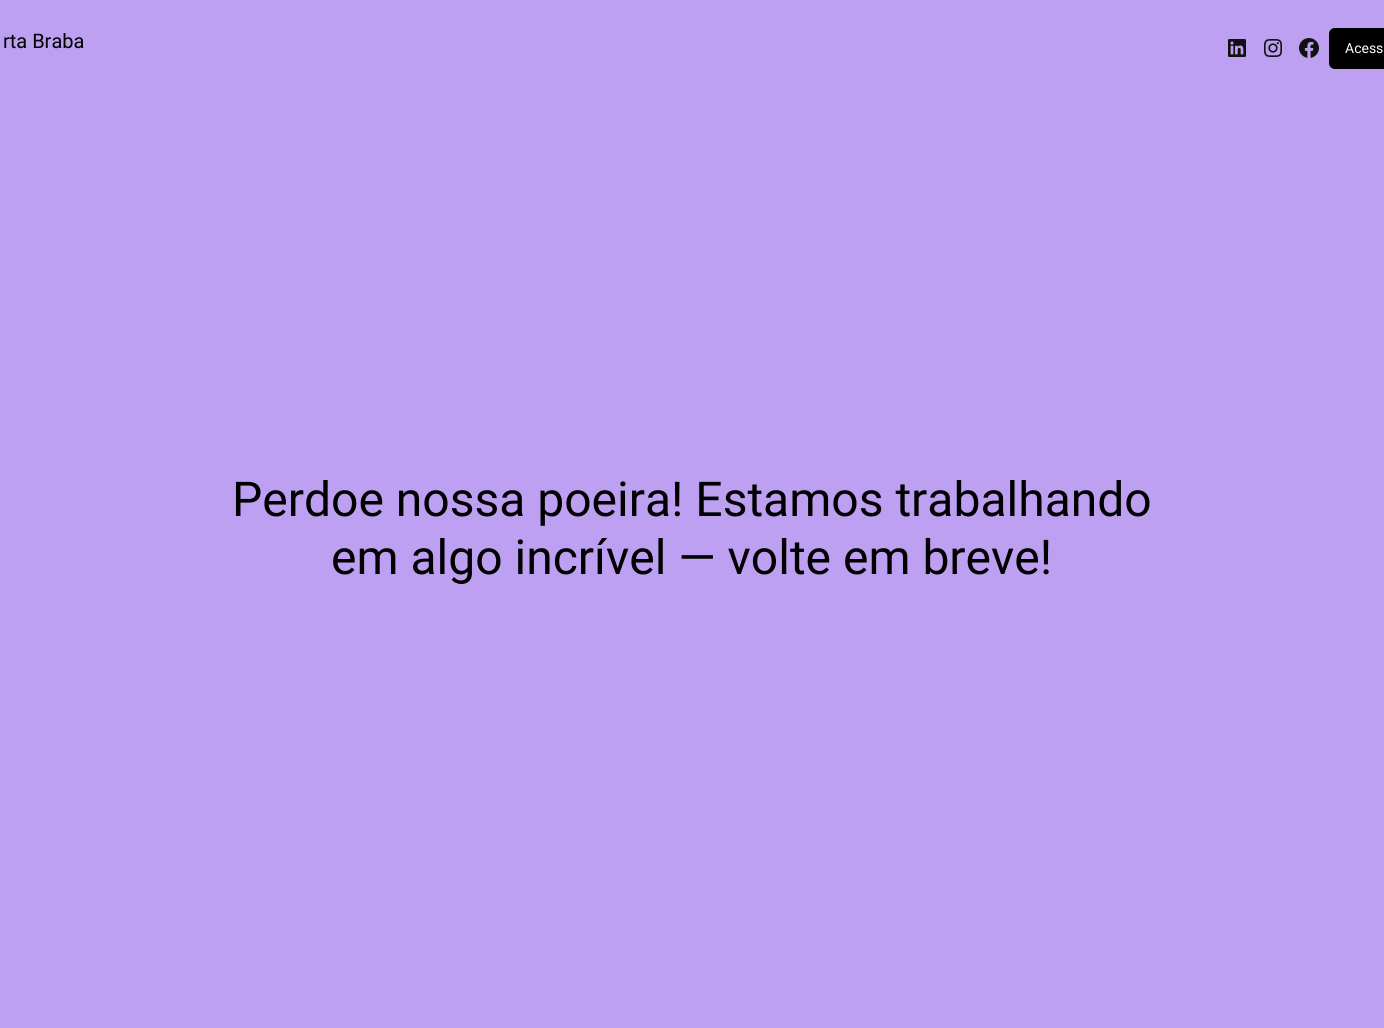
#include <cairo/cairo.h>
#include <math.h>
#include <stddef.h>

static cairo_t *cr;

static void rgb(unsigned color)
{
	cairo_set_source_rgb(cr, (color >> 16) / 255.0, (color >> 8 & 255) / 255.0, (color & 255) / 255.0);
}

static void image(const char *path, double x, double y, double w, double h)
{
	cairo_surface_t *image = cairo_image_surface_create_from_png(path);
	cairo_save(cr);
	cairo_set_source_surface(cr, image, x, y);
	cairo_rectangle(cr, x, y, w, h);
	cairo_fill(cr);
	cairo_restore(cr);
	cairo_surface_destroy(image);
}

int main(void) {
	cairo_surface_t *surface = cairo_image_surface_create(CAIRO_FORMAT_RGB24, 1384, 1028);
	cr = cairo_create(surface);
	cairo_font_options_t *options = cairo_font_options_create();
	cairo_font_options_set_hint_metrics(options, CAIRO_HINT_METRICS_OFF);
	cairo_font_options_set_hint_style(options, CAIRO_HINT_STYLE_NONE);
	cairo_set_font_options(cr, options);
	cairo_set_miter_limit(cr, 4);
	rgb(0xbea0f2);
	cairo_paint(cr);
	image("img/1.png", 1228, 39, 18, 18);
	image("img/2.png", 1264, 39, 18, 18);
	image("img/3.png", 1299, 38, 20, 20);
	rgb(0x000000);
	cairo_new_path(cr);
	cairo_move_to(cr, 1335, 28);
	cairo_line_to(cr, 1384, 28);
	cairo_line_to(cr, 1384, 69);
	cairo_line_to(cr, 1335, 69);
	cairo_curve_to(cr, 1331.5, 69, 1329, 66.5, 1329, 63);
	cairo_line_to(cr, 1329, 34);
	cairo_curve_to(cr, 1329, 30.5, 1331.5, 28, 1335, 28);
	cairo_close_path(cr);
	cairo_fill(cr);
	cairo_select_font_face(cr, "Roboto", CAIRO_FONT_SLANT_NORMAL, CAIRO_FONT_WEIGHT_NORMAL);
	cairo_set_font_size(cr, 20);
	cairo_move_to(cr, 3, 48);
	cairo_show_text(cr, "rta Braba");
	cairo_set_font_size(cr, 14);
	rgb(0xffffff);
	cairo_move_to(cr, 1345, 53);
	cairo_show_text(cr, "Acess");
	cairo_set_font_size(cr, 48);
	rgb(0x000000);
	cairo_move_to(cr, 232, 516);
	cairo_show_text(cr, "Perdoe nossa poeira! Estamos trabalhando");
	cairo_move_to(cr, 331, 574);
	cairo_show_text(cr, "em algo incrível — volte em breve!");
	cairo_surface_write_to_png(surface, "page.png");
	cairo_font_options_destroy(options);
	cairo_destroy(cr);
	cairo_surface_destroy(surface);
	return 0;
}
